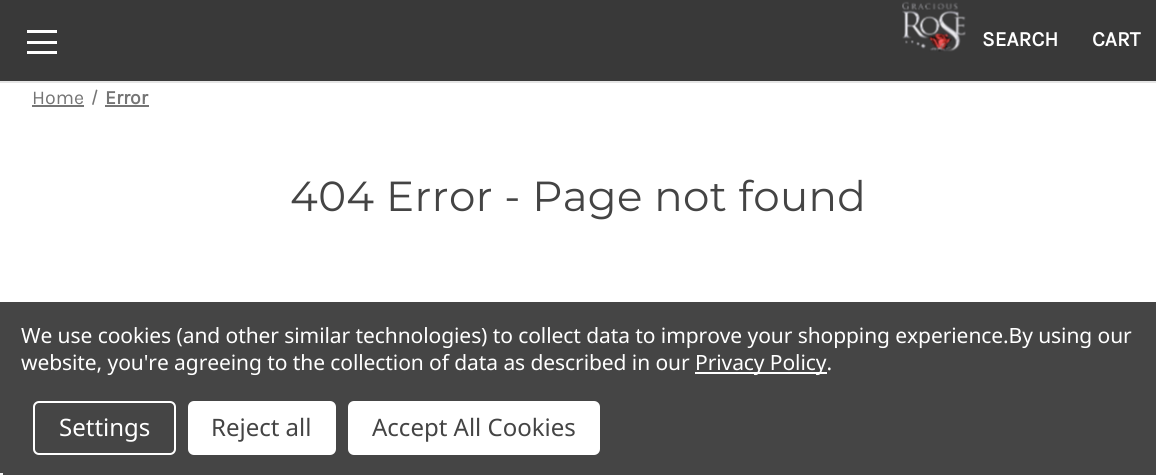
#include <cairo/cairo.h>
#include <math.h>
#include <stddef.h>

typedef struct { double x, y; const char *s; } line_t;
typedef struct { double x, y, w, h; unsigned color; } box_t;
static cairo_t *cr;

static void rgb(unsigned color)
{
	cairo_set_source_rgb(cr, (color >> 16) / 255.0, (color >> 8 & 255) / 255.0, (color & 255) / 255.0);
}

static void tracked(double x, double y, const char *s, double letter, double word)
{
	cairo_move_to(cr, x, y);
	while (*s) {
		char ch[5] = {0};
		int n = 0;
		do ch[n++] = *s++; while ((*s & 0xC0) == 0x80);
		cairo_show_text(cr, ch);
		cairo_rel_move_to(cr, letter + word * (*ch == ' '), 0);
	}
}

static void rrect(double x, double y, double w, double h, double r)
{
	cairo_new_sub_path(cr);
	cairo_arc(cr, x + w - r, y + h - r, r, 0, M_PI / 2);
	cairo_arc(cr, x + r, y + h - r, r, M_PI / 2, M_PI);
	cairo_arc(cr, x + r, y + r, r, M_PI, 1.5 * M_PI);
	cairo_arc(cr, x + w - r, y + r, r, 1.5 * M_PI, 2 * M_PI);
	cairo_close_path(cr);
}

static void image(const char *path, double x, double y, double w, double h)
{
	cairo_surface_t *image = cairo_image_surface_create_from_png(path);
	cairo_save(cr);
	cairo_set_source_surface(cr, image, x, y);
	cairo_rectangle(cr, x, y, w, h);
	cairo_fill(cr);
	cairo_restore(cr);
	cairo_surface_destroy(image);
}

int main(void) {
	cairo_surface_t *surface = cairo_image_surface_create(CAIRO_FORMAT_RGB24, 1156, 475);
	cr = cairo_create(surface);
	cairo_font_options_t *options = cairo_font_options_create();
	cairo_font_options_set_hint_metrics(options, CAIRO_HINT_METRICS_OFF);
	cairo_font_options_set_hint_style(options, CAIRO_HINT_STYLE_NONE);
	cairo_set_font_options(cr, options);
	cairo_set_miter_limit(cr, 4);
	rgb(0xffffff);
	cairo_paint(cr);
	{
		static const box_t items[] = {
			{0, 0, 1156, 81, 0x393939},
			{0, 81, 1156, 2, 0xe5e5e5},
			{27, 41, 30, 3, 0xffffff},
			{27, 30, 30, 3, 0xffffff},
			{27, 51, 30, 3, 0xffffff},
		};
		for (size_t i = 0; i < sizeof items / sizeof *items; i++) {
			rgb(items[i].color);
			cairo_rectangle(cr, items[i].x, items[i].y, items[i].w, items[i].h);
			cairo_fill(cr);
		}
	}
	image("img/1.png", 902, 1, 64, 51);
	rgb(0x757575);
	cairo_rectangle(cr, 32, 105, 52, 2);
	cairo_fill(cr);
	cairo_new_path(cr);
	cairo_move_to(cr, 96, 89.5);
	cairo_line_to(cr, 97.5, 90);
	cairo_line_to(cr, 93.5, 105);
	cairo_line_to(cr, 92, 104.5);
	cairo_close_path(cr);
	cairo_fill(cr);
	{
		static const box_t items[] = {
			{105, 105, 44, 2, 0x757575},
			{0, 302, 1156, 173, 0x454545},
			{695, 372, 132, 2, 0xffffff},
		};
		for (size_t i = 0; i < sizeof items / sizeof *items; i++) {
			rgb(items[i].color);
			cairo_rectangle(cr, items[i].x, items[i].y, items[i].w, items[i].h);
			cairo_fill(cr);
		}
	}
	rrect(34, 402, 141, 52, 5);
	cairo_stroke(cr);
	rrect(188, 401, 148, 54, 6);
	cairo_fill(cr);
	rrect(348, 401, 252, 54, 6);
	cairo_fill(cr);
	rgb(0xf5f5f5);
	cairo_rectangle(cr, 0, 473, 3, 2);
	cairo_fill(cr);
	cairo_select_font_face(cr, "Karla", CAIRO_FONT_SLANT_NORMAL, CAIRO_FONT_WEIGHT_BOLD);
	cairo_set_font_size(cr, 21);
	rgb(0xffffff);
	cairo_move_to(cr, 982, 46);
	cairo_show_text(cr, "SEARCH");
	cairo_move_to(cr, 1092, 46);
	cairo_show_text(cr, "CART");
	cairo_select_font_face(cr, "Karla", CAIRO_FONT_SLANT_NORMAL, CAIRO_FONT_WEIGHT_NORMAL);
	cairo_set_font_size(cr, 19.5);
	rgb(0x757575);
	cairo_move_to(cr, 32, 104);
	cairo_show_text(cr, "Home");
	cairo_select_font_face(cr, "Karla", CAIRO_FONT_SLANT_NORMAL, CAIRO_FONT_WEIGHT_BOLD);
	cairo_move_to(cr, 105, 104);
	cairo_show_text(cr, "Error");
	cairo_select_font_face(cr, "Montserrat", CAIRO_FONT_SLANT_NORMAL, CAIRO_FONT_WEIGHT_NORMAL);
	cairo_set_font_size(cr, 42);
	rgb(0x444444);
	tracked(290, 211, "404 Error - Page not found", 0.4, 0);
	cairo_select_font_face(cr, "Noto Sans", CAIRO_FONT_SLANT_NORMAL, CAIRO_FONT_WEIGHT_NORMAL);
	cairo_set_font_size(cr, 21);
	rgb(0xffffff);
	{
		static const line_t items[] = {
			{21, 343, "We use cookies (and other similar technologies) to collect data to improve your shopping experience.By using our"},
			{21, 370, "website, you're agreeing to the collection of data as described in our"},
			{695, 370, "Privacy Policy."},
		};
		for (size_t i = 0; i < sizeof items / sizeof *items; i++) {
			tracked(items[i].x, items[i].y, items[i].s, -0.08, 0);
		}
	}
	cairo_set_font_size(cr, 24);
	cairo_move_to(cr, 59, 436);
	cairo_show_text(cr, "Settings");
	rgb(0x444444);
	cairo_move_to(cr, 211, 436);
	cairo_show_text(cr, "Reject all");
	cairo_move_to(cr, 372, 436);
	cairo_show_text(cr, "Accept All Cookies");
	cairo_surface_write_to_png(surface, "page.png");
	cairo_font_options_destroy(options);
	cairo_destroy(cr);
	cairo_surface_destroy(surface);
	return 0;
}
